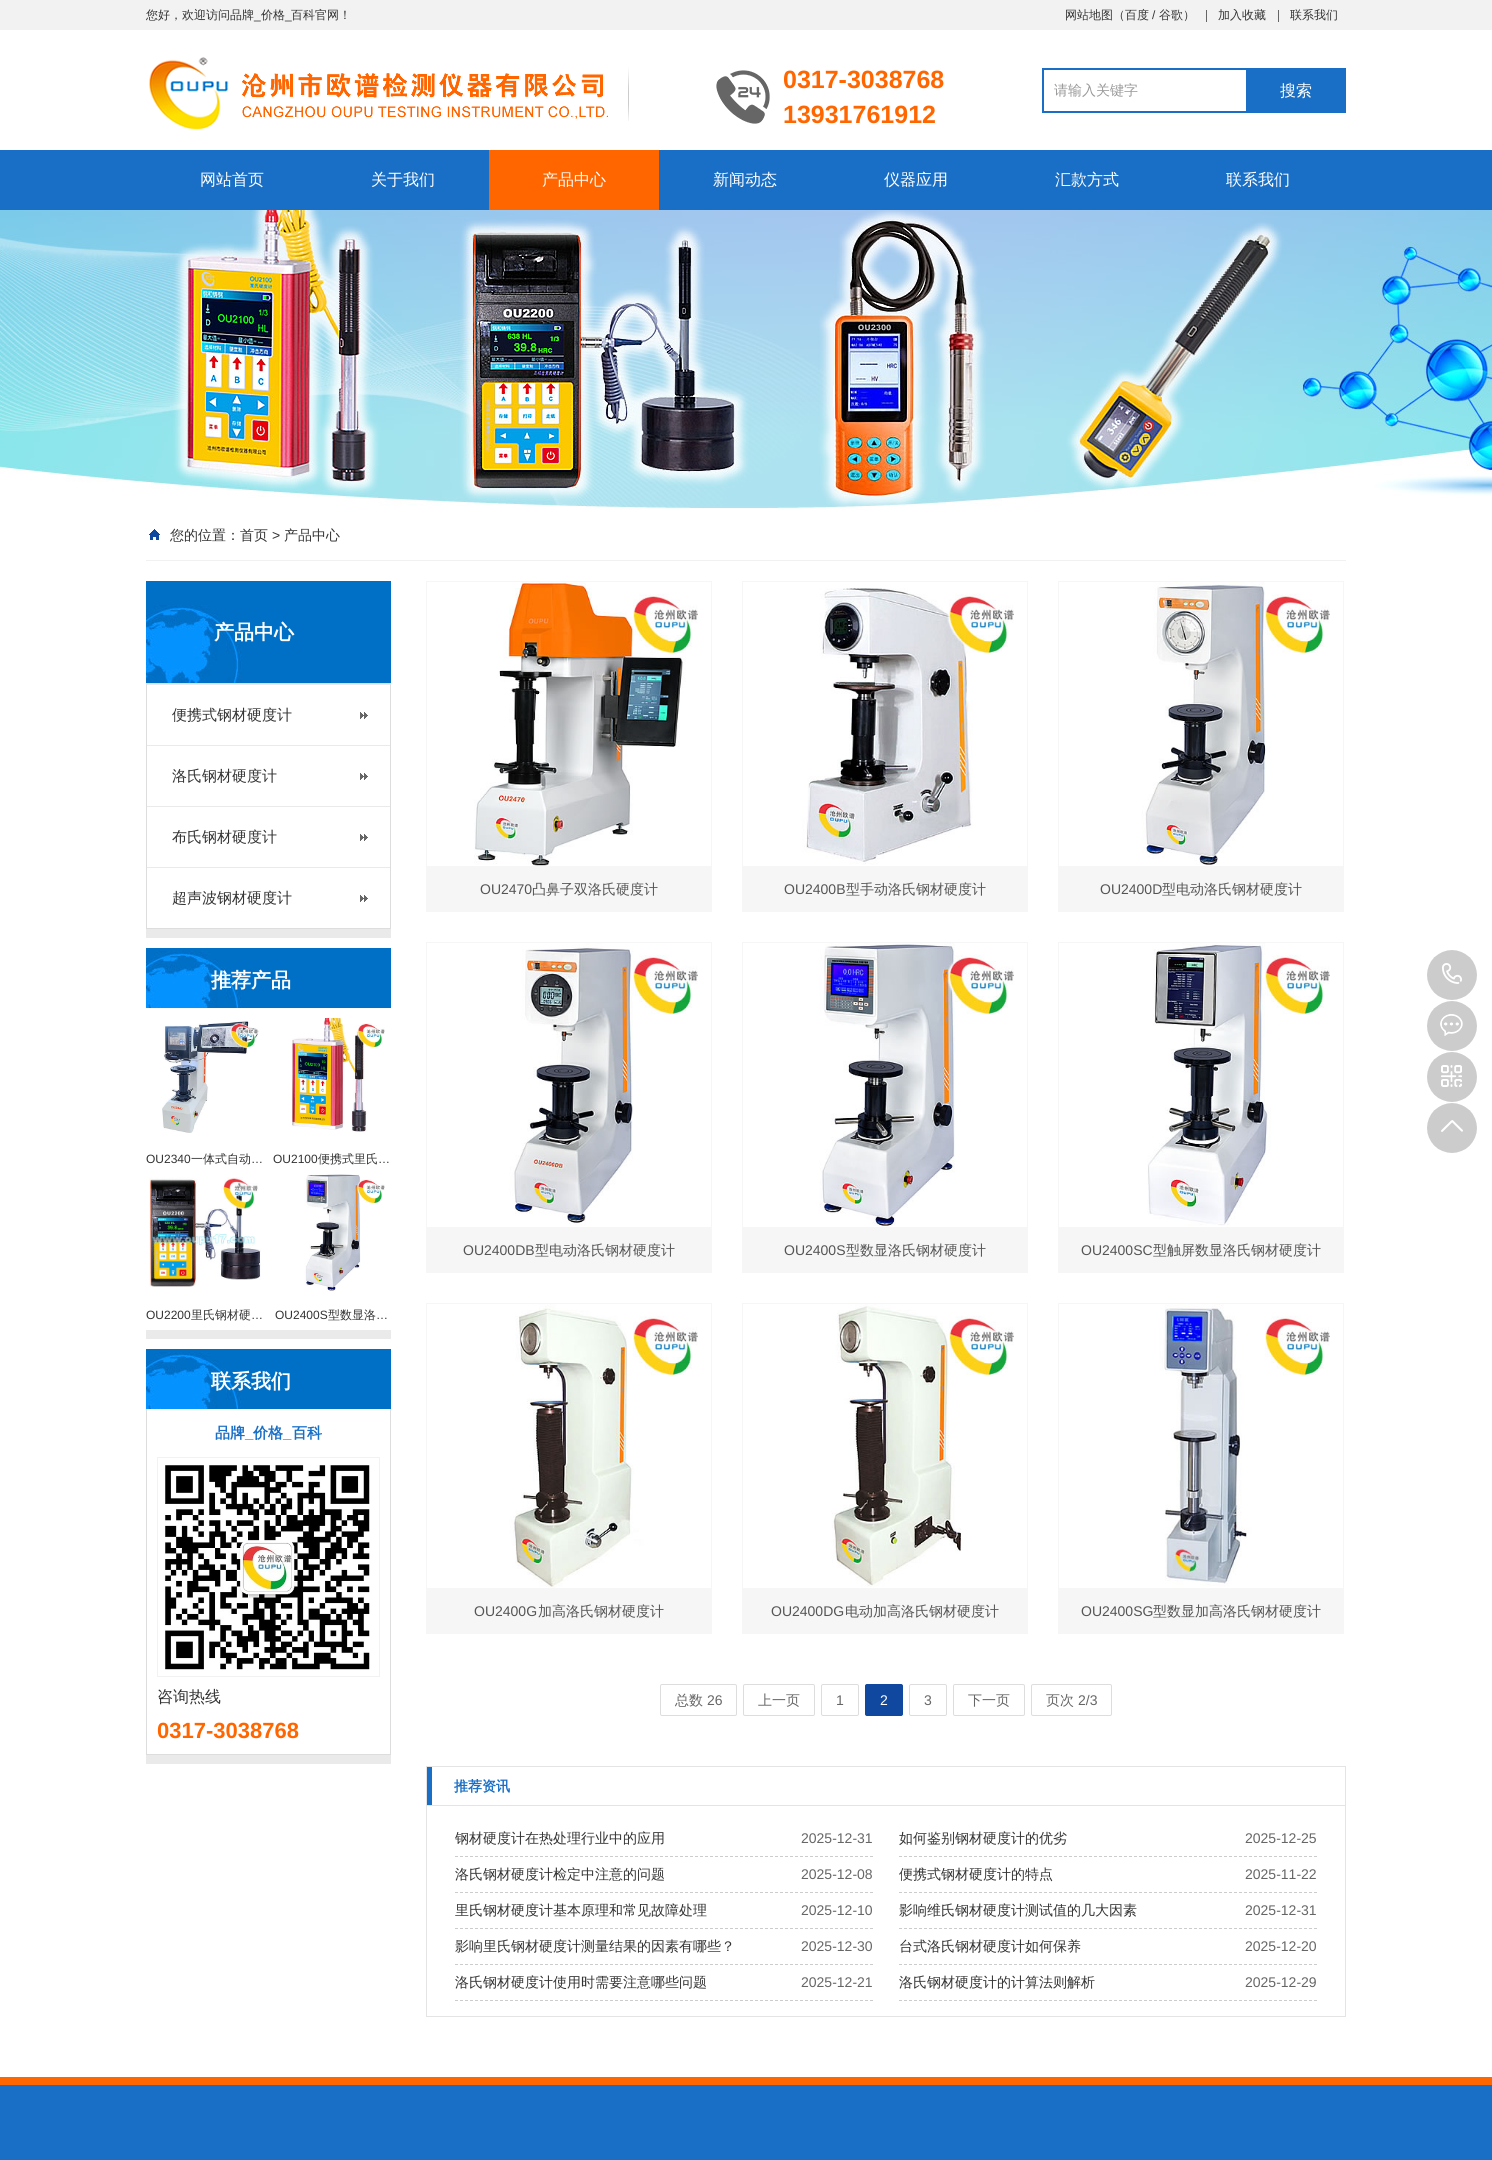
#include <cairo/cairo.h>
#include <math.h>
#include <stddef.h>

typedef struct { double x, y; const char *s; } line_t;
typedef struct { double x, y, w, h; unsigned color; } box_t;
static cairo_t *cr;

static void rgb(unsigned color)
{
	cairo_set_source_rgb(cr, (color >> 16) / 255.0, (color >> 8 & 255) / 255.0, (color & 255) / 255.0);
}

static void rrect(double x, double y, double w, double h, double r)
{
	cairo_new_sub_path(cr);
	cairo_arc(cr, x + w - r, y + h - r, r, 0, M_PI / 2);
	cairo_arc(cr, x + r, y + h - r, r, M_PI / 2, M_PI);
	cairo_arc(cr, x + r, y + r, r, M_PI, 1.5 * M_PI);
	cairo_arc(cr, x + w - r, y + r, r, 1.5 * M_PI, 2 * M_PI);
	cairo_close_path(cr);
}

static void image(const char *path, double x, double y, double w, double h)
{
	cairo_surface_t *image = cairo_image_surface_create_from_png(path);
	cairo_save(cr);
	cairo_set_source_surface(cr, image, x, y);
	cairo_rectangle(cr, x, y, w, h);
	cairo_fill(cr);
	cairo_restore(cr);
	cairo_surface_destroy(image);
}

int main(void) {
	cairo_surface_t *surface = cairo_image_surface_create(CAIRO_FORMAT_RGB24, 1492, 2160);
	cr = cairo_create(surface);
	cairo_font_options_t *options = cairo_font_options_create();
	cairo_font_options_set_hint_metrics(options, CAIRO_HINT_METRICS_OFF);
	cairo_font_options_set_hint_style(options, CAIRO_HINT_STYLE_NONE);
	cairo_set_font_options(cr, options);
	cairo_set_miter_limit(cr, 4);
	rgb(0xffffff);
	cairo_paint(cr);
	{
		static const box_t items[] = {
			{0, 0, 1492, 30, 0xf2f2f2},
			{1206, 10, 1, 12, 0x666666},
			{1278, 10, 1, 12, 0x666666},
		};
		for (size_t i = 0; i < sizeof items / sizeof *items; i++) {
			rgb(items[i].color);
			cairo_rectangle(cr, items[i].x, items[i].y, items[i].w, items[i].h);
			cairo_fill(cr);
		}
	}
	image("img/1.png", 148, 57, 481, 73);
	image("img/2.png", 716, 70, 54, 54);
	cairo_rectangle(cr, 1043, 69, 302, 43);
	rgb(0x196fc6);
	cairo_stroke(cr);
	{
		static const box_t items[] = {
			{1246, 70, 98, 41, 0x196fc6},
			{0, 150, 1492, 60, 0x196fc6},
			{489, 150, 170, 60, 0xff6600},
		};
		for (size_t i = 0; i < sizeof items / sizeof *items; i++) {
			rgb(items[i].color);
			cairo_rectangle(cr, items[i].x, items[i].y, items[i].w, items[i].h);
			cairo_fill(cr);
		}
	}
	image("img/3.png", 0, 210, 1492, 300);
	rgb(0xf1f1f1);
	cairo_rectangle(cr, 146, 560, 1200, 1);
	cairo_fill(cr);
	image("img/4.png", 149, 529, 11, 11);
	rgb(0xeaeaea);
	cairo_rectangle(cr, 146, 929, 245, 9);
	cairo_fill(cr);
	image("img/5.png", 146, 581, 245, 102);
	cairo_rectangle(cr, 146.5, 683.5, 244, 245);
	rgb(0xdddddd);
	cairo_set_line_width(cr, 1);
	cairo_stroke(cr);
	image("img/6.png", 360, 712, 8, 7);
	rgb(0xeaeaea);
	cairo_rectangle(cr, 147, 684, 243, 1);
	cairo_fill(cr);
	image("img/6.png", 360, 773, 8, 7);
	cairo_rectangle(cr, 147, 745, 243, 1);
	cairo_fill(cr);
	image("img/6.png", 360, 834, 8, 7);
	cairo_rectangle(cr, 147, 806, 243, 1);
	cairo_fill(cr);
	image("img/6.png", 360, 895, 8, 7);
	cairo_rectangle(cr, 147, 867, 243, 1);
	cairo_fill(cr);
	cairo_rectangle(cr, 146, 1330, 245, 9);
	cairo_fill(cr);
	image("img/7.png", 146, 948, 245, 60);
	image("img/8.png", 162, 1020, 97, 113);
	image("img/9.png", 292, 1018, 93, 114);
	image("img/10.png", 149, 1177, 112, 110);
	image("img/11.png", 304, 1174, 81, 117);
	cairo_rectangle(cr, 146, 1755, 245, 9);
	cairo_fill(cr);
	image("img/7.png", 146, 1349, 245, 60);
	{
		static const box_t items[] = {
			{390, 1409, 1, 346, 0xdddddd},
			{146, 1754, 245, 1, 0xdddddd},
			{146, 1409, 1, 346, 0xdddddd},
		};
		for (size_t i = 0; i < sizeof items / sizeof *items; i++) {
			rgb(items[i].color);
			cairo_rectangle(cr, items[i].x, items[i].y, items[i].w, items[i].h);
			cairo_fill(cr);
		}
	}
	cairo_rectangle(cr, 157.5, 1457.5, 222, 219);
	rgb(0xf2f2f2);
	cairo_stroke(cr);
	image("img/12.png", 165, 1465, 205, 205);
	rgb(0xf6f6f6);
	cairo_rectangle(cr, 426, 581, 286, 331);
	cairo_fill(cr);
	image("img/13.png", 427, 582, 284, 284);
	cairo_rectangle(cr, 742, 581, 286, 331);
	cairo_fill(cr);
	image("img/14.png", 743, 582, 284, 284);
	cairo_rectangle(cr, 1058, 581, 286, 331);
	cairo_fill(cr);
	image("img/15.png", 1059, 582, 284, 284);
	cairo_rectangle(cr, 426, 942, 286, 331);
	cairo_fill(cr);
	image("img/16.png", 427, 943, 284, 284);
	cairo_rectangle(cr, 742, 942, 286, 331);
	cairo_fill(cr);
	image("img/17.png", 743, 943, 284, 284);
	cairo_rectangle(cr, 1058, 942, 286, 331);
	cairo_fill(cr);
	image("img/18.png", 1059, 943, 284, 284);
	cairo_rectangle(cr, 426, 1303, 286, 331);
	cairo_fill(cr);
	image("img/19.png", 427, 1304, 284, 284);
	cairo_rectangle(cr, 742, 1303, 286, 331);
	cairo_fill(cr);
	image("img/20.png", 743, 1304, 284, 284);
	cairo_rectangle(cr, 1058, 1303, 286, 331);
	cairo_fill(cr);
	image("img/21.png", 1059, 1304, 284, 284);
	rrect(660.5, 1684.5, 76, 31, 1.5);
	rgb(0xdddddd);
	cairo_stroke(cr);
	rrect(743.5, 1684.5, 71, 31, 1.5);
	cairo_stroke(cr);
	rrect(821.5, 1684.5, 37, 31, 1.5);
	cairo_stroke(cr);
	rgb(0x1048a0);
	rrect(865.5, 1684.5, 37, 31, 1.5);
	cairo_fill_preserve(cr);
	cairo_stroke(cr);
	rrect(909.5, 1684.5, 37, 31, 1.5);
	rgb(0xdddddd);
	cairo_stroke(cr);
	rrect(953.5, 1684.5, 71, 31, 1.5);
	cairo_stroke(cr);
	rrect(1031.5, 1684.5, 80, 31, 1.5);
	cairo_stroke(cr);
	cairo_rectangle(cr, 426.5, 1766.5, 919, 39);
	rgb(0xe4e4e4);
	cairo_stroke(cr);
	{
		static const box_t items[] = {
			{427, 1767, 5, 38, 0x196fc6},
			{1345, 1806, 1, 211, 0xe4e4e4},
			{426, 2016, 920, 1, 0xe4e4e4},
			{426, 1806, 1, 211, 0xe4e4e4},
		};
		for (size_t i = 0; i < sizeof items / sizeof *items; i++) {
			rgb(items[i].color);
			cairo_rectangle(cr, items[i].x, items[i].y, items[i].w, items[i].h);
			cairo_fill(cr);
		}
	}
	cairo_new_path(cr);
	cairo_move_to(cr, 455, 1856.5);
	cairo_line_to(cr, 873, 1856.5);
	rgb(0xcccccc);
	cairo_set_dash(cr, (double[]){3, 2}, 2, 0);
	cairo_stroke(cr);
	cairo_new_path(cr);
	cairo_move_to(cr, 899, 1856.5);
	cairo_line_to(cr, 1317, 1856.5);
	cairo_stroke(cr);
	cairo_new_path(cr);
	cairo_move_to(cr, 455, 1892.5);
	cairo_line_to(cr, 873, 1892.5);
	cairo_stroke(cr);
	cairo_new_path(cr);
	cairo_move_to(cr, 899, 1892.5);
	cairo_line_to(cr, 1317, 1892.5);
	cairo_stroke(cr);
	cairo_new_path(cr);
	cairo_move_to(cr, 455, 1928.5);
	cairo_line_to(cr, 873, 1928.5);
	cairo_stroke(cr);
	cairo_new_path(cr);
	cairo_move_to(cr, 899, 1928.5);
	cairo_line_to(cr, 1317, 1928.5);
	cairo_stroke(cr);
	cairo_new_path(cr);
	cairo_move_to(cr, 455, 1964.5);
	cairo_line_to(cr, 873, 1964.5);
	cairo_stroke(cr);
	cairo_new_path(cr);
	cairo_move_to(cr, 899, 1964.5);
	cairo_line_to(cr, 1317, 1964.5);
	cairo_stroke(cr);
	cairo_new_path(cr);
	cairo_move_to(cr, 455, 2000.5);
	cairo_line_to(cr, 873, 2000.5);
	cairo_stroke(cr);
	cairo_new_path(cr);
	cairo_move_to(cr, 899, 2000.5);
	cairo_line_to(cr, 1317, 2000.5);
	cairo_stroke(cr);
	image("img/22.png", 1427, 950, 50, 50);
	image("img/23.png", 1442, 963, 20, 21);
	image("img/22.png", 1427, 1001, 50, 50);
	image("img/24.png", 1440, 1014, 23, 22);
	image("img/22.png", 1427, 1052, 50, 50);
	image("img/25.png", 1441, 1065, 21, 22);
	image("img/22.png", 1427, 1103, 50, 50);
	image("img/26.png", 1441, 1120, 22, 12);
	rgb(0x196fc6);
	cairo_rectangle(cr, 0, 2085, 1492, 75);
	cairo_fill(cr);
	rgb(0xff6600);
	cairo_rectangle(cr, 0, 2077, 1492, 8);
	cairo_fill(cr);
	cairo_select_font_face(cr, "WenQuanYi Zen Hei Medium", CAIRO_FONT_SLANT_NORMAL, CAIRO_FONT_WEIGHT_NORMAL);
	cairo_set_font_size(cr, 12);
	rgb(0x333333);
	cairo_move_to(cr, 146, 19);
	cairo_show_text(cr, "您好，欢迎访问品牌");
	cairo_select_font_face(cr, "Liberation Sans", CAIRO_FONT_SLANT_NORMAL, CAIRO_FONT_WEIGHT_NORMAL);
	cairo_move_to(cr, 254, 19);
	cairo_show_text(cr, "_");
	cairo_select_font_face(cr, "WenQuanYi Zen Hei Medium", CAIRO_FONT_SLANT_NORMAL, CAIRO_FONT_WEIGHT_NORMAL);
	cairo_move_to(cr, 261, 19);
	cairo_show_text(cr, "价格");
	cairo_select_font_face(cr, "Liberation Sans", CAIRO_FONT_SLANT_NORMAL, CAIRO_FONT_WEIGHT_NORMAL);
	cairo_move_to(cr, 285, 19);
	cairo_show_text(cr, "_");
	cairo_select_font_face(cr, "WenQuanYi Zen Hei Medium", CAIRO_FONT_SLANT_NORMAL, CAIRO_FONT_WEIGHT_NORMAL);
	cairo_move_to(cr, 291, 19);
	cairo_show_text(cr, "百科官网！");
	cairo_move_to(cr, 1065, 19);
	cairo_show_text(cr, "网站地图（百度");
	cairo_select_font_face(cr, "Liberation Sans", CAIRO_FONT_SLANT_NORMAL, CAIRO_FONT_WEIGHT_NORMAL);
	cairo_move_to(cr, 1152, 19);
	cairo_show_text(cr, "/");
	cairo_select_font_face(cr, "WenQuanYi Zen Hei Medium", CAIRO_FONT_SLANT_NORMAL, CAIRO_FONT_WEIGHT_NORMAL);
	{
		static const line_t items[] = {
			{1159, 19, "谷歌）"},
			{1218, 19, "加入收藏"},
			{1290, 19, "联系我们"},
		};
		for (size_t i = 0; i < sizeof items / sizeof *items; i++) {
			cairo_move_to(cr, items[i].x, items[i].y);
			cairo_show_text(cr, items[i].s);
		}
	}
	cairo_select_font_face(cr, "Liberation Sans", CAIRO_FONT_SLANT_NORMAL, CAIRO_FONT_WEIGHT_BOLD);
	cairo_set_font_size(cr, 25);
	rgb(0xff6600);
	cairo_move_to(cr, 783, 88);
	cairo_show_text(cr, "0317-3038768");
	cairo_move_to(cr, 783, 123);
	cairo_show_text(cr, "13931761912");
	cairo_select_font_face(cr, "WenQuanYi Zen Hei Medium", CAIRO_FONT_SLANT_NORMAL, CAIRO_FONT_WEIGHT_NORMAL);
	cairo_set_font_size(cr, 14);
	rgb(0x999999);
	cairo_move_to(cr, 1054, 95);
	cairo_show_text(cr, "请输入关键字");
	cairo_set_font_size(cr, 16);
	rgb(0xffffff);
	{
		static const line_t items[] = {
			{1280, 96, "搜索"},
			{200, 185, "网站首页"},
			{371, 185, "关于我们"},
			{542, 185, "产品中心"},
			{713, 185, "新闻动态"},
			{884, 185, "仪器应用"},
			{1055, 185, "汇款方式"},
			{1226, 185, "联系我们"},
		};
		for (size_t i = 0; i < sizeof items / sizeof *items; i++) {
			cairo_move_to(cr, items[i].x, items[i].y);
			cairo_show_text(cr, items[i].s);
		}
	}
	cairo_set_font_size(cr, 14);
	rgb(0x333333);
	cairo_move_to(cr, 170, 540);
	cairo_show_text(cr, "您的位置：首页");
	cairo_select_font_face(cr, "Liberation Sans", CAIRO_FONT_SLANT_NORMAL, CAIRO_FONT_WEIGHT_NORMAL);
	cairo_move_to(cr, 272, 540);
	cairo_show_text(cr, ">");
	cairo_select_font_face(cr, "WenQuanYi Zen Hei Medium", CAIRO_FONT_SLANT_NORMAL, CAIRO_FONT_WEIGHT_NORMAL);
	cairo_move_to(cr, 284, 540);
	cairo_show_text(cr, "产品中心");
	cairo_select_font_face(cr, "WenQuanYi Zen Hei", CAIRO_FONT_SLANT_NORMAL, CAIRO_FONT_WEIGHT_BOLD);
	cairo_set_font_size(cr, 20);
	rgb(0xffffff);
	cairo_move_to(cr, 214, 639);
	cairo_show_text(cr, "产品中心");
	cairo_select_font_face(cr, "WenQuanYi Zen Hei Medium", CAIRO_FONT_SLANT_NORMAL, CAIRO_FONT_WEIGHT_NORMAL);
	cairo_set_font_size(cr, 15);
	rgb(0x333333);
	{
		static const line_t items[] = {
			{172, 720, "便携式钢材硬度计"},
			{172, 781, "洛氏钢材硬度计"},
			{172, 842, "布氏钢材硬度计"},
			{172, 903, "超声波钢材硬度计"},
		};
		for (size_t i = 0; i < sizeof items / sizeof *items; i++) {
			cairo_move_to(cr, items[i].x, items[i].y);
			cairo_show_text(cr, items[i].s);
		}
	}
	cairo_select_font_face(cr, "WenQuanYi Zen Hei", CAIRO_FONT_SLANT_NORMAL, CAIRO_FONT_WEIGHT_BOLD);
	cairo_set_font_size(cr, 20);
	rgb(0xffffff);
	cairo_move_to(cr, 211, 987);
	cairo_show_text(cr, "推荐产品");
	cairo_select_font_face(cr, "Liberation Sans", CAIRO_FONT_SLANT_NORMAL, CAIRO_FONT_WEIGHT_NORMAL);
	cairo_set_font_size(cr, 12);
	rgb(0x333333);
	cairo_move_to(cr, 146, 1163);
	cairo_show_text(cr, "OU2340");
	cairo_select_font_face(cr, "WenQuanYi Zen Hei Medium", CAIRO_FONT_SLANT_NORMAL, CAIRO_FONT_WEIGHT_NORMAL);
	cairo_move_to(cr, 191, 1163);
	cairo_show_text(cr, "一体式自动");
	cairo_select_font_face(cr, "Liberation Sans", CAIRO_FONT_SLANT_NORMAL, CAIRO_FONT_WEIGHT_NORMAL);
	cairo_move_to(cr, 251, 1163);
	cairo_show_text(cr, "…");
	cairo_move_to(cr, 273, 1163);
	cairo_show_text(cr, "OU2100");
	cairo_select_font_face(cr, "WenQuanYi Zen Hei Medium", CAIRO_FONT_SLANT_NORMAL, CAIRO_FONT_WEIGHT_NORMAL);
	cairo_move_to(cr, 318, 1163);
	cairo_show_text(cr, "便携式里氏");
	cairo_select_font_face(cr, "Liberation Sans", CAIRO_FONT_SLANT_NORMAL, CAIRO_FONT_WEIGHT_NORMAL);
	cairo_move_to(cr, 378, 1163);
	cairo_show_text(cr, "…");
	cairo_move_to(cr, 146, 1319);
	cairo_show_text(cr, "OU2200");
	cairo_select_font_face(cr, "WenQuanYi Zen Hei Medium", CAIRO_FONT_SLANT_NORMAL, CAIRO_FONT_WEIGHT_NORMAL);
	cairo_move_to(cr, 191, 1319);
	cairo_show_text(cr, "里氏钢材硬");
	cairo_select_font_face(cr, "Liberation Sans", CAIRO_FONT_SLANT_NORMAL, CAIRO_FONT_WEIGHT_NORMAL);
	cairo_move_to(cr, 251, 1319);
	cairo_show_text(cr, "…");
	cairo_move_to(cr, 275, 1319);
	cairo_show_text(cr, "OU2400S");
	cairo_select_font_face(cr, "WenQuanYi Zen Hei Medium", CAIRO_FONT_SLANT_NORMAL, CAIRO_FONT_WEIGHT_NORMAL);
	cairo_move_to(cr, 328, 1319);
	cairo_show_text(cr, "型数显洛");
	cairo_select_font_face(cr, "Liberation Sans", CAIRO_FONT_SLANT_NORMAL, CAIRO_FONT_WEIGHT_NORMAL);
	cairo_move_to(cr, 376, 1319);
	cairo_show_text(cr, "…");
	cairo_select_font_face(cr, "WenQuanYi Zen Hei", CAIRO_FONT_SLANT_NORMAL, CAIRO_FONT_WEIGHT_BOLD);
	cairo_set_font_size(cr, 20);
	rgb(0xffffff);
	cairo_move_to(cr, 211, 1388);
	cairo_show_text(cr, "联系我们");
	cairo_set_font_size(cr, 15);
	rgb(0x196fc6);
	cairo_move_to(cr, 215, 1438);
	cairo_show_text(cr, "品牌");
	cairo_select_font_face(cr, "Liberation Sans", CAIRO_FONT_SLANT_NORMAL, CAIRO_FONT_WEIGHT_BOLD);
	cairo_move_to(cr, 245, 1438);
	cairo_show_text(cr, "_");
	cairo_select_font_face(cr, "WenQuanYi Zen Hei", CAIRO_FONT_SLANT_NORMAL, CAIRO_FONT_WEIGHT_BOLD);
	cairo_move_to(cr, 253, 1438);
	cairo_show_text(cr, "价格");
	cairo_select_font_face(cr, "Liberation Sans", CAIRO_FONT_SLANT_NORMAL, CAIRO_FONT_WEIGHT_BOLD);
	cairo_move_to(cr, 283, 1438);
	cairo_show_text(cr, "_");
	cairo_select_font_face(cr, "WenQuanYi Zen Hei", CAIRO_FONT_SLANT_NORMAL, CAIRO_FONT_WEIGHT_BOLD);
	cairo_move_to(cr, 292, 1438);
	cairo_show_text(cr, "百科");
	cairo_select_font_face(cr, "WenQuanYi Zen Hei Medium", CAIRO_FONT_SLANT_NORMAL, CAIRO_FONT_WEIGHT_NORMAL);
	cairo_set_font_size(cr, 16);
	rgb(0x333333);
	cairo_move_to(cr, 157, 1702);
	cairo_show_text(cr, "咨询热线");
	cairo_select_font_face(cr, "Liberation Sans", CAIRO_FONT_SLANT_NORMAL, CAIRO_FONT_WEIGHT_BOLD);
	cairo_set_font_size(cr, 22);
	rgb(0xff6600);
	cairo_move_to(cr, 157, 1738);
	cairo_show_text(cr, "0317-3038768");
	cairo_select_font_face(cr, "Liberation Sans", CAIRO_FONT_SLANT_NORMAL, CAIRO_FONT_WEIGHT_NORMAL);
	cairo_set_font_size(cr, 14);
	rgb(0x555555);
	cairo_move_to(cr, 480, 894);
	cairo_show_text(cr, "OU2470");
	cairo_select_font_face(cr, "WenQuanYi Zen Hei Medium", CAIRO_FONT_SLANT_NORMAL, CAIRO_FONT_WEIGHT_NORMAL);
	cairo_move_to(cr, 532, 894);
	cairo_show_text(cr, "凸鼻子双洛氏硬度计");
	cairo_select_font_face(cr, "Liberation Sans", CAIRO_FONT_SLANT_NORMAL, CAIRO_FONT_WEIGHT_NORMAL);
	cairo_move_to(cr, 784, 894);
	cairo_show_text(cr, "OU2400B");
	cairo_select_font_face(cr, "WenQuanYi Zen Hei Medium", CAIRO_FONT_SLANT_NORMAL, CAIRO_FONT_WEIGHT_NORMAL);
	cairo_move_to(cr, 846, 894);
	cairo_show_text(cr, "型手动洛氏钢材硬度计");
	cairo_select_font_face(cr, "Liberation Sans", CAIRO_FONT_SLANT_NORMAL, CAIRO_FONT_WEIGHT_NORMAL);
	cairo_move_to(cr, 1100, 894);
	cairo_show_text(cr, "OU2400D");
	cairo_select_font_face(cr, "WenQuanYi Zen Hei Medium", CAIRO_FONT_SLANT_NORMAL, CAIRO_FONT_WEIGHT_NORMAL);
	cairo_move_to(cr, 1162, 894);
	cairo_show_text(cr, "型电动洛氏钢材硬度计");
	cairo_select_font_face(cr, "Liberation Sans", CAIRO_FONT_SLANT_NORMAL, CAIRO_FONT_WEIGHT_NORMAL);
	cairo_move_to(cr, 463, 1255);
	cairo_show_text(cr, "OU2400DB");
	cairo_select_font_face(cr, "WenQuanYi Zen Hei Medium", CAIRO_FONT_SLANT_NORMAL, CAIRO_FONT_WEIGHT_NORMAL);
	cairo_move_to(cr, 535, 1255);
	cairo_show_text(cr, "型电动洛氏钢材硬度计");
	cairo_select_font_face(cr, "Liberation Sans", CAIRO_FONT_SLANT_NORMAL, CAIRO_FONT_WEIGHT_NORMAL);
	cairo_move_to(cr, 784, 1255);
	cairo_show_text(cr, "OU2400S");
	cairo_select_font_face(cr, "WenQuanYi Zen Hei Medium", CAIRO_FONT_SLANT_NORMAL, CAIRO_FONT_WEIGHT_NORMAL);
	cairo_move_to(cr, 846, 1255);
	cairo_show_text(cr, "型数显洛氏钢材硬度计");
	cairo_select_font_face(cr, "Liberation Sans", CAIRO_FONT_SLANT_NORMAL, CAIRO_FONT_WEIGHT_NORMAL);
	cairo_move_to(cr, 1081, 1255);
	cairo_show_text(cr, "OU2400SC");
	cairo_select_font_face(cr, "WenQuanYi Zen Hei Medium", CAIRO_FONT_SLANT_NORMAL, CAIRO_FONT_WEIGHT_NORMAL);
	cairo_move_to(cr, 1153, 1255);
	cairo_show_text(cr, "型触屏数显洛氏钢材硬度计");
	cairo_select_font_face(cr, "Liberation Sans", CAIRO_FONT_SLANT_NORMAL, CAIRO_FONT_WEIGHT_NORMAL);
	cairo_move_to(cr, 474, 1616);
	cairo_show_text(cr, "OU2400G");
	cairo_select_font_face(cr, "WenQuanYi Zen Hei Medium", CAIRO_FONT_SLANT_NORMAL, CAIRO_FONT_WEIGHT_NORMAL);
	cairo_move_to(cr, 538, 1616);
	cairo_show_text(cr, "加高洛氏钢材硬度计");
	cairo_select_font_face(cr, "Liberation Sans", CAIRO_FONT_SLANT_NORMAL, CAIRO_FONT_WEIGHT_NORMAL);
	cairo_move_to(cr, 771, 1616);
	cairo_show_text(cr, "OU2400DG");
	cairo_select_font_face(cr, "WenQuanYi Zen Hei Medium", CAIRO_FONT_SLANT_NORMAL, CAIRO_FONT_WEIGHT_NORMAL);
	cairo_move_to(cr, 845, 1616);
	cairo_show_text(cr, "电动加高洛氏钢材硬度计");
	cairo_select_font_face(cr, "Liberation Sans", CAIRO_FONT_SLANT_NORMAL, CAIRO_FONT_WEIGHT_NORMAL);
	cairo_move_to(cr, 1081, 1616);
	cairo_show_text(cr, "OU2400SG");
	cairo_select_font_face(cr, "WenQuanYi Zen Hei Medium", CAIRO_FONT_SLANT_NORMAL, CAIRO_FONT_WEIGHT_NORMAL);
	cairo_move_to(cr, 1153, 1616);
	cairo_show_text(cr, "型数显加高洛氏钢材硬度计");
	rgb(0x666666);
	cairo_move_to(cr, 675, 1705);
	cairo_show_text(cr, "总数");
	cairo_select_font_face(cr, "Liberation Sans", CAIRO_FONT_SLANT_NORMAL, CAIRO_FONT_WEIGHT_NORMAL);
	cairo_move_to(cr, 707, 1705);
	cairo_show_text(cr, "26");
	cairo_select_font_face(cr, "WenQuanYi Zen Hei Medium", CAIRO_FONT_SLANT_NORMAL, CAIRO_FONT_WEIGHT_NORMAL);
	cairo_move_to(cr, 758, 1705);
	cairo_show_text(cr, "上一页");
	cairo_select_font_face(cr, "Liberation Sans", CAIRO_FONT_SLANT_NORMAL, CAIRO_FONT_WEIGHT_NORMAL);
	cairo_move_to(cr, 836, 1705);
	cairo_show_text(cr, "1");
	rgb(0xffffff);
	cairo_move_to(cr, 880, 1705);
	cairo_show_text(cr, "2");
	rgb(0x666666);
	cairo_move_to(cr, 924, 1705);
	cairo_show_text(cr, "3");
	cairo_select_font_face(cr, "WenQuanYi Zen Hei Medium", CAIRO_FONT_SLANT_NORMAL, CAIRO_FONT_WEIGHT_NORMAL);
	cairo_move_to(cr, 968, 1705);
	cairo_show_text(cr, "下一页");
	cairo_move_to(cr, 1046, 1705);
	cairo_show_text(cr, "页次");
	cairo_select_font_face(cr, "Liberation Sans", CAIRO_FONT_SLANT_NORMAL, CAIRO_FONT_WEIGHT_NORMAL);
	cairo_move_to(cr, 1078, 1705);
	cairo_show_text(cr, "2/3");
	cairo_select_font_face(cr, "WenQuanYi Zen Hei", CAIRO_FONT_SLANT_NORMAL, CAIRO_FONT_WEIGHT_BOLD);
	rgb(0x196fc6);
	cairo_move_to(cr, 454, 1791);
	cairo_show_text(cr, "推荐资讯");
	cairo_select_font_face(cr, "WenQuanYi Zen Hei Medium", CAIRO_FONT_SLANT_NORMAL, CAIRO_FONT_WEIGHT_NORMAL);
	rgb(0x333333);
	cairo_move_to(cr, 455, 1843);
	cairo_show_text(cr, "钢材硬度计在热处理行业中的应用");
	cairo_select_font_face(cr, "Liberation Sans", CAIRO_FONT_SLANT_NORMAL, CAIRO_FONT_WEIGHT_NORMAL);
	rgb(0x666666);
	cairo_move_to(cr, 801, 1843);
	cairo_show_text(cr, "2025-12-31");
	cairo_select_font_face(cr, "WenQuanYi Zen Hei Medium", CAIRO_FONT_SLANT_NORMAL, CAIRO_FONT_WEIGHT_NORMAL);
	rgb(0x333333);
	cairo_move_to(cr, 899, 1843);
	cairo_show_text(cr, "如何鉴别钢材硬度计的优劣");
	cairo_select_font_face(cr, "Liberation Sans", CAIRO_FONT_SLANT_NORMAL, CAIRO_FONT_WEIGHT_NORMAL);
	rgb(0x666666);
	cairo_move_to(cr, 1245, 1843);
	cairo_show_text(cr, "2025-12-25");
	cairo_select_font_face(cr, "WenQuanYi Zen Hei Medium", CAIRO_FONT_SLANT_NORMAL, CAIRO_FONT_WEIGHT_NORMAL);
	rgb(0x333333);
	cairo_move_to(cr, 455, 1879);
	cairo_show_text(cr, "洛氏钢材硬度计检定中注意的问题");
	cairo_select_font_face(cr, "Liberation Sans", CAIRO_FONT_SLANT_NORMAL, CAIRO_FONT_WEIGHT_NORMAL);
	rgb(0x666666);
	cairo_move_to(cr, 801, 1879);
	cairo_show_text(cr, "2025-12-08");
	cairo_select_font_face(cr, "WenQuanYi Zen Hei Medium", CAIRO_FONT_SLANT_NORMAL, CAIRO_FONT_WEIGHT_NORMAL);
	rgb(0x333333);
	cairo_move_to(cr, 899, 1879);
	cairo_show_text(cr, "便携式钢材硬度计的特点");
	cairo_select_font_face(cr, "Liberation Sans", CAIRO_FONT_SLANT_NORMAL, CAIRO_FONT_WEIGHT_NORMAL);
	rgb(0x666666);
	cairo_move_to(cr, 1245, 1879);
	cairo_show_text(cr, "2025-11-22");
	cairo_select_font_face(cr, "WenQuanYi Zen Hei Medium", CAIRO_FONT_SLANT_NORMAL, CAIRO_FONT_WEIGHT_NORMAL);
	rgb(0x333333);
	cairo_move_to(cr, 455, 1915);
	cairo_show_text(cr, "里氏钢材硬度计基本原理和常见故障处理");
	cairo_select_font_face(cr, "Liberation Sans", CAIRO_FONT_SLANT_NORMAL, CAIRO_FONT_WEIGHT_NORMAL);
	rgb(0x666666);
	cairo_move_to(cr, 801, 1915);
	cairo_show_text(cr, "2025-12-10");
	cairo_select_font_face(cr, "WenQuanYi Zen Hei Medium", CAIRO_FONT_SLANT_NORMAL, CAIRO_FONT_WEIGHT_NORMAL);
	rgb(0x333333);
	cairo_move_to(cr, 899, 1915);
	cairo_show_text(cr, "影响维氏钢材硬度计测试值的几大因素");
	cairo_select_font_face(cr, "Liberation Sans", CAIRO_FONT_SLANT_NORMAL, CAIRO_FONT_WEIGHT_NORMAL);
	rgb(0x666666);
	cairo_move_to(cr, 1245, 1915);
	cairo_show_text(cr, "2025-12-31");
	cairo_select_font_face(cr, "WenQuanYi Zen Hei Medium", CAIRO_FONT_SLANT_NORMAL, CAIRO_FONT_WEIGHT_NORMAL);
	rgb(0x333333);
	cairo_move_to(cr, 455, 1951);
	cairo_show_text(cr, "影响里氏钢材硬度计测量结果的因素有哪些？");
	cairo_select_font_face(cr, "Liberation Sans", CAIRO_FONT_SLANT_NORMAL, CAIRO_FONT_WEIGHT_NORMAL);
	rgb(0x666666);
	cairo_move_to(cr, 801, 1951);
	cairo_show_text(cr, "2025-12-30");
	cairo_select_font_face(cr, "WenQuanYi Zen Hei Medium", CAIRO_FONT_SLANT_NORMAL, CAIRO_FONT_WEIGHT_NORMAL);
	rgb(0x333333);
	cairo_move_to(cr, 899, 1951);
	cairo_show_text(cr, "台式洛氏钢材硬度计如何保养");
	cairo_select_font_face(cr, "Liberation Sans", CAIRO_FONT_SLANT_NORMAL, CAIRO_FONT_WEIGHT_NORMAL);
	rgb(0x666666);
	cairo_move_to(cr, 1245, 1951);
	cairo_show_text(cr, "2025-12-20");
	cairo_select_font_face(cr, "WenQuanYi Zen Hei Medium", CAIRO_FONT_SLANT_NORMAL, CAIRO_FONT_WEIGHT_NORMAL);
	rgb(0x333333);
	cairo_move_to(cr, 455, 1987);
	cairo_show_text(cr, "洛氏钢材硬度计使用时需要注意哪些问题");
	cairo_select_font_face(cr, "Liberation Sans", CAIRO_FONT_SLANT_NORMAL, CAIRO_FONT_WEIGHT_NORMAL);
	rgb(0x666666);
	cairo_move_to(cr, 801, 1987);
	cairo_show_text(cr, "2025-12-21");
	cairo_select_font_face(cr, "WenQuanYi Zen Hei Medium", CAIRO_FONT_SLANT_NORMAL, CAIRO_FONT_WEIGHT_NORMAL);
	rgb(0x333333);
	cairo_move_to(cr, 899, 1987);
	cairo_show_text(cr, "洛氏钢材硬度计的计算法则解析");
	cairo_select_font_face(cr, "Liberation Sans", CAIRO_FONT_SLANT_NORMAL, CAIRO_FONT_WEIGHT_NORMAL);
	rgb(0x666666);
	cairo_move_to(cr, 1245, 1987);
	cairo_show_text(cr, "2025-12-29");
	cairo_surface_write_to_png(surface, "page.png");
	cairo_font_options_destroy(options);
	cairo_destroy(cr);
	cairo_surface_destroy(surface);
	return 0;
}
